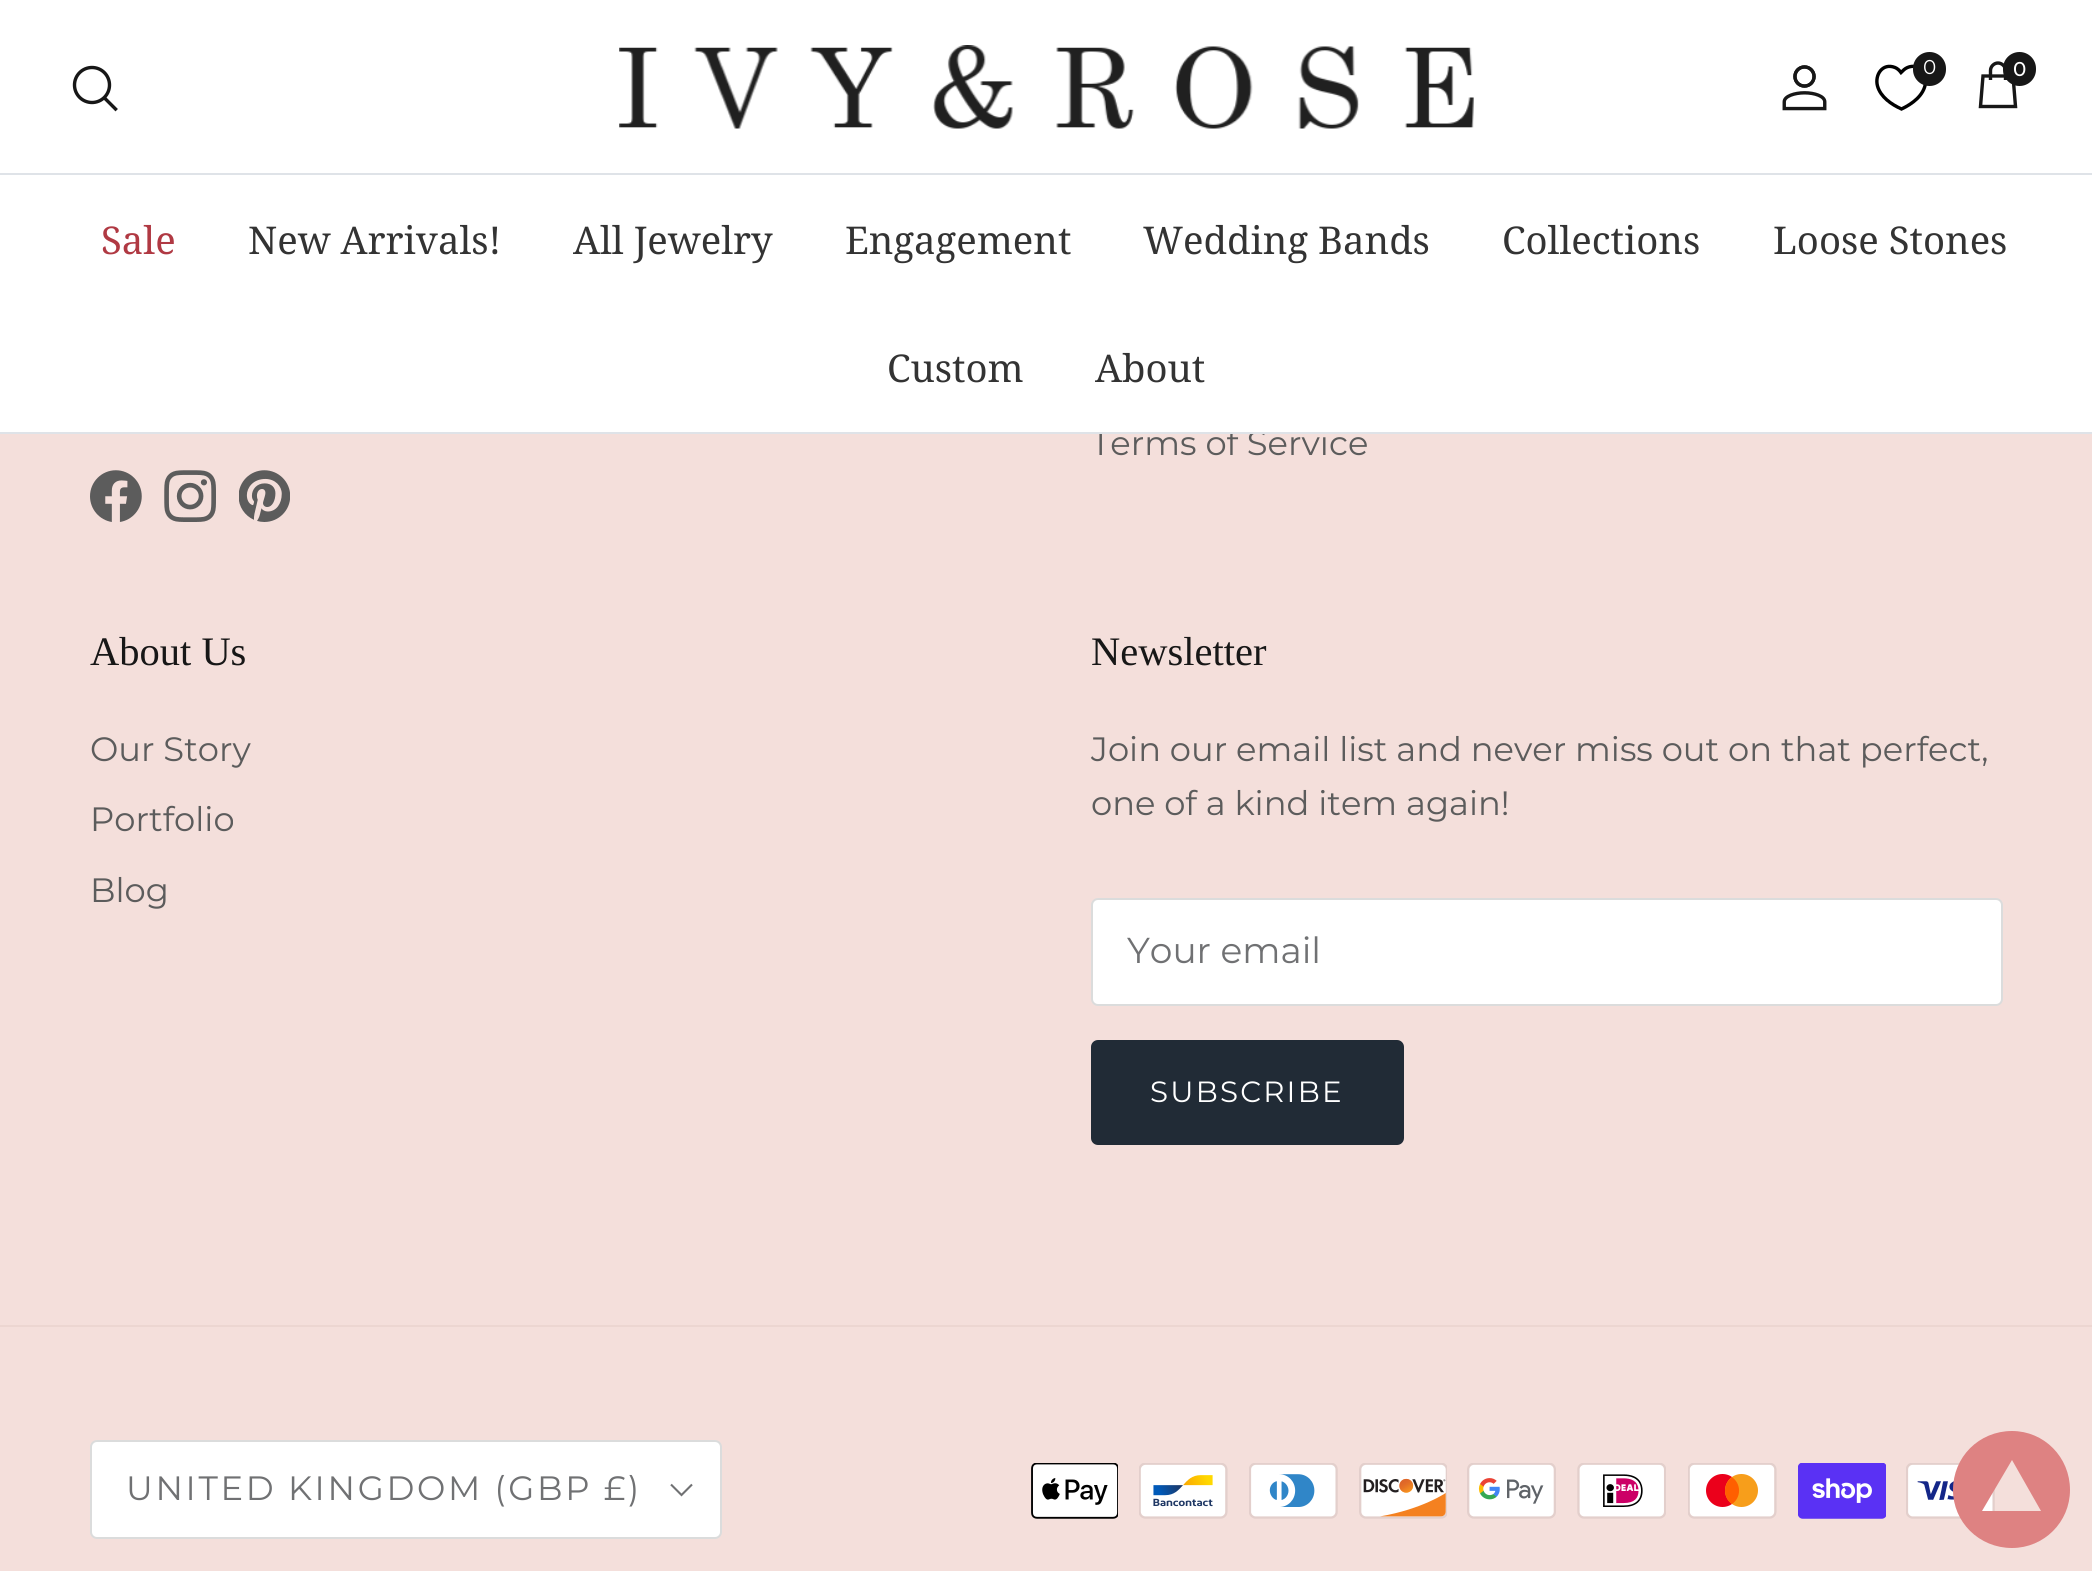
#include <cairo/cairo.h>
#include <math.h>
#include <stddef.h>

typedef struct { double x, y; const char *s; } line_t;
static cairo_t *cr;

static void rgb(unsigned color)
{
	cairo_set_source_rgb(cr, (color >> 16) / 255.0, (color >> 8 & 255) / 255.0, (color & 255) / 255.0);
}

static void tracked(double x, double y, const char *s, double letter, double word)
{
	cairo_move_to(cr, x, y);
	while (*s) {
		char ch[5] = {0};
		int n = 0;
		do ch[n++] = *s++; while ((*s & 0xC0) == 0x80);
		cairo_show_text(cr, ch);
		cairo_rel_move_to(cr, letter + word * (*ch == ' '), 0);
	}
}

static void rrect(double x, double y, double w, double h, double r)
{
	cairo_new_sub_path(cr);
	cairo_arc(cr, x + w - r, y + h - r, r, 0, M_PI / 2);
	cairo_arc(cr, x + r, y + h - r, r, M_PI / 2, M_PI);
	cairo_arc(cr, x + r, y + r, r, M_PI, 1.5 * M_PI);
	cairo_arc(cr, x + w - r, y + r, r, 1.5 * M_PI, 2 * M_PI);
	cairo_close_path(cr);
}

static void image(const char *path, double x, double y, double w, double h)
{
	cairo_surface_t *image = cairo_image_surface_create_from_png(path);
	cairo_save(cr);
	cairo_set_source_surface(cr, image, x, y);
	cairo_rectangle(cr, x, y, w, h);
	cairo_fill(cr);
	cairo_restore(cr);
	cairo_surface_destroy(image);
}

int main(void) {
	cairo_surface_t *surface = cairo_image_surface_create(CAIRO_FORMAT_RGB24, 2092, 1571);
	cr = cairo_create(surface);
	cairo_font_options_t *options = cairo_font_options_create();
	cairo_font_options_set_hint_metrics(options, CAIRO_HINT_METRICS_OFF);
	cairo_font_options_set_hint_style(options, CAIRO_HINT_STYLE_NONE);
	cairo_set_font_options(cr, options);
	cairo_set_miter_limit(cr, 4);
	rgb(0xf4dfdb);
	cairo_paint(cr);
	image("img/3.png", 90, 470, 52, 52);
	image("img/4.png", 164, 470, 52, 52);
	image("img/5.png", 239, 470, 51, 52);
	rgb(0xffffff);
	rrect(1092, 899, 910, 106, 6);
	cairo_fill_preserve(cr);
	rgb(0xdbdcdc);
	cairo_stroke(cr);
	rgb(0x212b36);
	rrect(1092, 1041, 311, 103, 6);
	cairo_fill_preserve(cr);
	cairo_stroke(cr);
	rgb(0xecd6d1);
	cairo_rectangle(cr, 0, 1325, 2092, 2);
	cairo_fill(cr);
	rgb(0xffffff);
	rrect(91, 1441, 630, 97, 6);
	cairo_fill_preserve(cr);
	rgb(0xdbdcdc);
	cairo_stroke(cr);
	cairo_new_path(cr);
	cairo_move_to(cr, 692, 1484.5);
	cairo_line_to(cr, 681.5, 1495);
	cairo_line_to(cr, 671, 1484.5);
	rgb(0x707173);
	cairo_set_line_width(cr, 2.1);
	cairo_stroke(cr);
	image("img/6.png", 1031, 1463, 87, 56);
	image("img/7.png", 1139, 1463, 89, 56);
	image("img/8.png", 1249, 1463, 89, 56);
	image("img/9.png", 1359, 1463, 88, 56);
	image("img/10.png", 1467, 1463, 89, 56);
	image("img/11.png", 1577, 1463, 89, 56);
	image("img/12.png", 1688, 1463, 89, 56);
	image("img/13.png", 1798, 1463, 88, 56);
	image("img/14.png", 1906, 1463, 89, 56);
	rgb(0xde8282);
	cairo_set_fill_rule(cr, CAIRO_FILL_RULE_EVEN_ODD);
	cairo_new_path(cr);
	cairo_move_to(cr, 2070, 1490);
	cairo_curve_to(cr, 2070, 1457, 2044, 1431, 2012, 1431);
	cairo_curve_to(cr, 1979, 1431, 1953, 1457, 1953, 1490);
	cairo_curve_to(cr, 1953, 1522, 1979, 1548, 2012, 1548);
	cairo_curve_to(cr, 2044, 1548, 2070, 1522, 2070, 1490);
	cairo_close_path(cr);
	cairo_move_to(cr, 2012, 1460);
	cairo_line_to(cr, 2041, 1511);
	cairo_line_to(cr, 1982, 1511);
	cairo_close_path(cr);
	cairo_fill(cr);
	cairo_select_font_face(cr, "Montserrat Thin", CAIRO_FONT_SLANT_NORMAL, CAIRO_FONT_WEIGHT_NORMAL);
	cairo_set_font_size(cr, 33.75);
	rgb(0x5c5c5c);
	cairo_move_to(cr, 1091, 455);
	cairo_show_text(cr, "Terms of Service");
	rgb(0xffffff);
	cairo_rectangle(cr, 0, 0, 2092, 432);
	cairo_fill(cr);
	cairo_new_path(cr);
	cairo_move_to(cr, 2005.5, 80);
	cairo_line_to(cr, 2005.5, 70.5);
	cairo_curve_to(cr, 2005.5, 66.5, 2002, 63, 1998, 63);
	cairo_curve_to(cr, 1994, 63, 1990.5, 66.5, 1990.5, 70.5);
	cairo_line_to(cr, 1990.5, 80);
	cairo_move_to(cr, 1983, 76);
	cairo_line_to(cr, 2013, 76);
	cairo_line_to(cr, 2015.5, 106.5);
	cairo_line_to(cr, 1980.5, 106.5);
	cairo_close_path(cr);
	rgb(0x171717);
	cairo_set_line_width(cr, 3.4);
	cairo_stroke(cr);
	rrect(2003, 52, 33, 34, 16.5);
	cairo_fill(cr);
	cairo_select_font_face(cr, "Montserrat Medium", CAIRO_FONT_SLANT_NORMAL, CAIRO_FONT_WEIGHT_NORMAL);
	cairo_set_font_size(cr, 20);
	rgb(0xffffff);
	cairo_move_to(cr, 2013, 76);
	cairo_show_text(cr, "0");
	cairo_new_path(cr);
	cairo_move_to(cr, 1901.5, 109);
	cairo_curve_to(cr, 1891.5, 104.5, 1880.5, 97, 1877.5, 86);
	cairo_curve_to(cr, 1874.5, 75, 1882.5, 62.5, 1895, 67.5);
	cairo_curve_to(cr, 1897.5, 68.5, 1899.5, 70.5, 1901, 72.5);
	cairo_curve_to(cr, 1903, 70.5, 1905, 68.5, 1907.5, 67.5);
	cairo_curve_to(cr, 1918, 63, 1927, 72.5, 1925.5, 83);
	cairo_curve_to(cr, 1924, 95.5, 1912, 104, 1901.5, 109);
	cairo_close_path(cr);
	rgb(0x000000);
	cairo_stroke(cr);
	rgb(0x171717);
	rrect(1913, 52, 33, 34, 16.5);
	cairo_fill(cr);
	cairo_select_font_face(cr, "Montserrat Thin", CAIRO_FONT_SLANT_NORMAL, CAIRO_FONT_WEIGHT_NORMAL);
	rgb(0xffffff);
	cairo_move_to(cr, 1923, 74);
	cairo_show_text(cr, "0");
	image("img/1.png", 619, 45, 855, 84);
	cairo_arc(cr, 92, 85, 17.5, 0, 2 * M_PI);
	rgb(0x171717);
	cairo_stroke(cr);
	cairo_new_path(cr);
	cairo_move_to(cr, 105.5, 99);
	cairo_line_to(cr, 115.5, 109);
	cairo_set_line_cap(cr, CAIRO_LINE_CAP_SQUARE);
	cairo_stroke(cr);
	image("img/2.png", 1782, 65, 45, 46);
	rgb(0xdfe3e8);
	cairo_rectangle(cr, 0, 173, 2092, 2);
	cairo_fill(cr);
	cairo_select_font_face(cr, "Noto Serif Georgian", CAIRO_FONT_SLANT_NORMAL, CAIRO_FONT_WEIGHT_NORMAL);
	cairo_set_font_size(cr, 38.25);
	rgb(0x333333);
	{
		static const line_t items[] = {
			{1095, 382, "About"},
			{887, 382, "Custom"},
			{1773, 254, "Loose Stones"},
			{1502, 254, "Collections"},
			{1143, 254, "Wedding Bands"},
			{845, 254, "Engagement"},
			{573, 254, "All Jewelry"},
			{248, 254, "New Arrivals!"},
		};
		for (size_t i = 0; i < sizeof items / sizeof *items; i++) {
			cairo_move_to(cr, items[i].x, items[i].y);
			cairo_show_text(cr, items[i].s);
		}
	}
	rgb(0xb03943);
	cairo_move_to(cr, 101, 254);
	cairo_show_text(cr, "Sale");
	rgb(0xdfe3e8);
	cairo_rectangle(cr, 0, 432, 2092, 2);
	cairo_fill(cr);
	cairo_select_font_face(cr, "Liberation Serif", CAIRO_FONT_SLANT_NORMAL, CAIRO_FONT_WEIGHT_NORMAL);
	cairo_set_font_size(cr, 40.5);
	rgb(0x171717);
	cairo_move_to(cr, 90, 665);
	cairo_show_text(cr, "About Us");
	cairo_select_font_face(cr, "Montserrat Thin", CAIRO_FONT_SLANT_NORMAL, CAIRO_FONT_WEIGHT_NORMAL);
	cairo_set_font_size(cr, 33.75);
	rgb(0x5c5c5c);
	{
		static const line_t items[] = {
			{90, 761, "Our Story"},
			{90, 831, "Portfolio"},
			{90, 902, "Blog"},
		};
		for (size_t i = 0; i < sizeof items / sizeof *items; i++) {
			cairo_move_to(cr, items[i].x, items[i].y);
			cairo_show_text(cr, items[i].s);
		}
	}
	cairo_select_font_face(cr, "Liberation Serif", CAIRO_FONT_SLANT_NORMAL, CAIRO_FONT_WEIGHT_NORMAL);
	cairo_set_font_size(cr, 40.5);
	rgb(0x171717);
	cairo_move_to(cr, 1091, 665);
	cairo_show_text(cr, "Newsletter");
	cairo_select_font_face(cr, "Montserrat Thin", CAIRO_FONT_SLANT_NORMAL, CAIRO_FONT_WEIGHT_NORMAL);
	cairo_set_font_size(cr, 33.75);
	rgb(0x5c5c5c);
	cairo_move_to(cr, 1091, 761);
	cairo_show_text(cr, "Join our email list and never miss out on that perfect,");
	cairo_move_to(cr, 1091, 815);
	cairo_show_text(cr, "one of a kind item again!");
	cairo_set_font_size(cr, 36);
	rgb(0x707173);
	cairo_move_to(cr, 1127, 963);
	cairo_show_text(cr, "Your email");
	cairo_set_font_size(cr, 29.25);
	rgb(0xffffff);
	tracked(1150, 1102, "SUBSCRIBE", 2.25, 0);
	cairo_set_font_size(cr, 33.75);
	rgb(0x707173);
	tracked(126, 1500, "UNITED KINGDOM (GBP £)", 2.7, 0);
	cairo_surface_write_to_png(surface, "page.png");
	cairo_font_options_destroy(options);
	cairo_destroy(cr);
	cairo_surface_destroy(surface);
	return 0;
}
